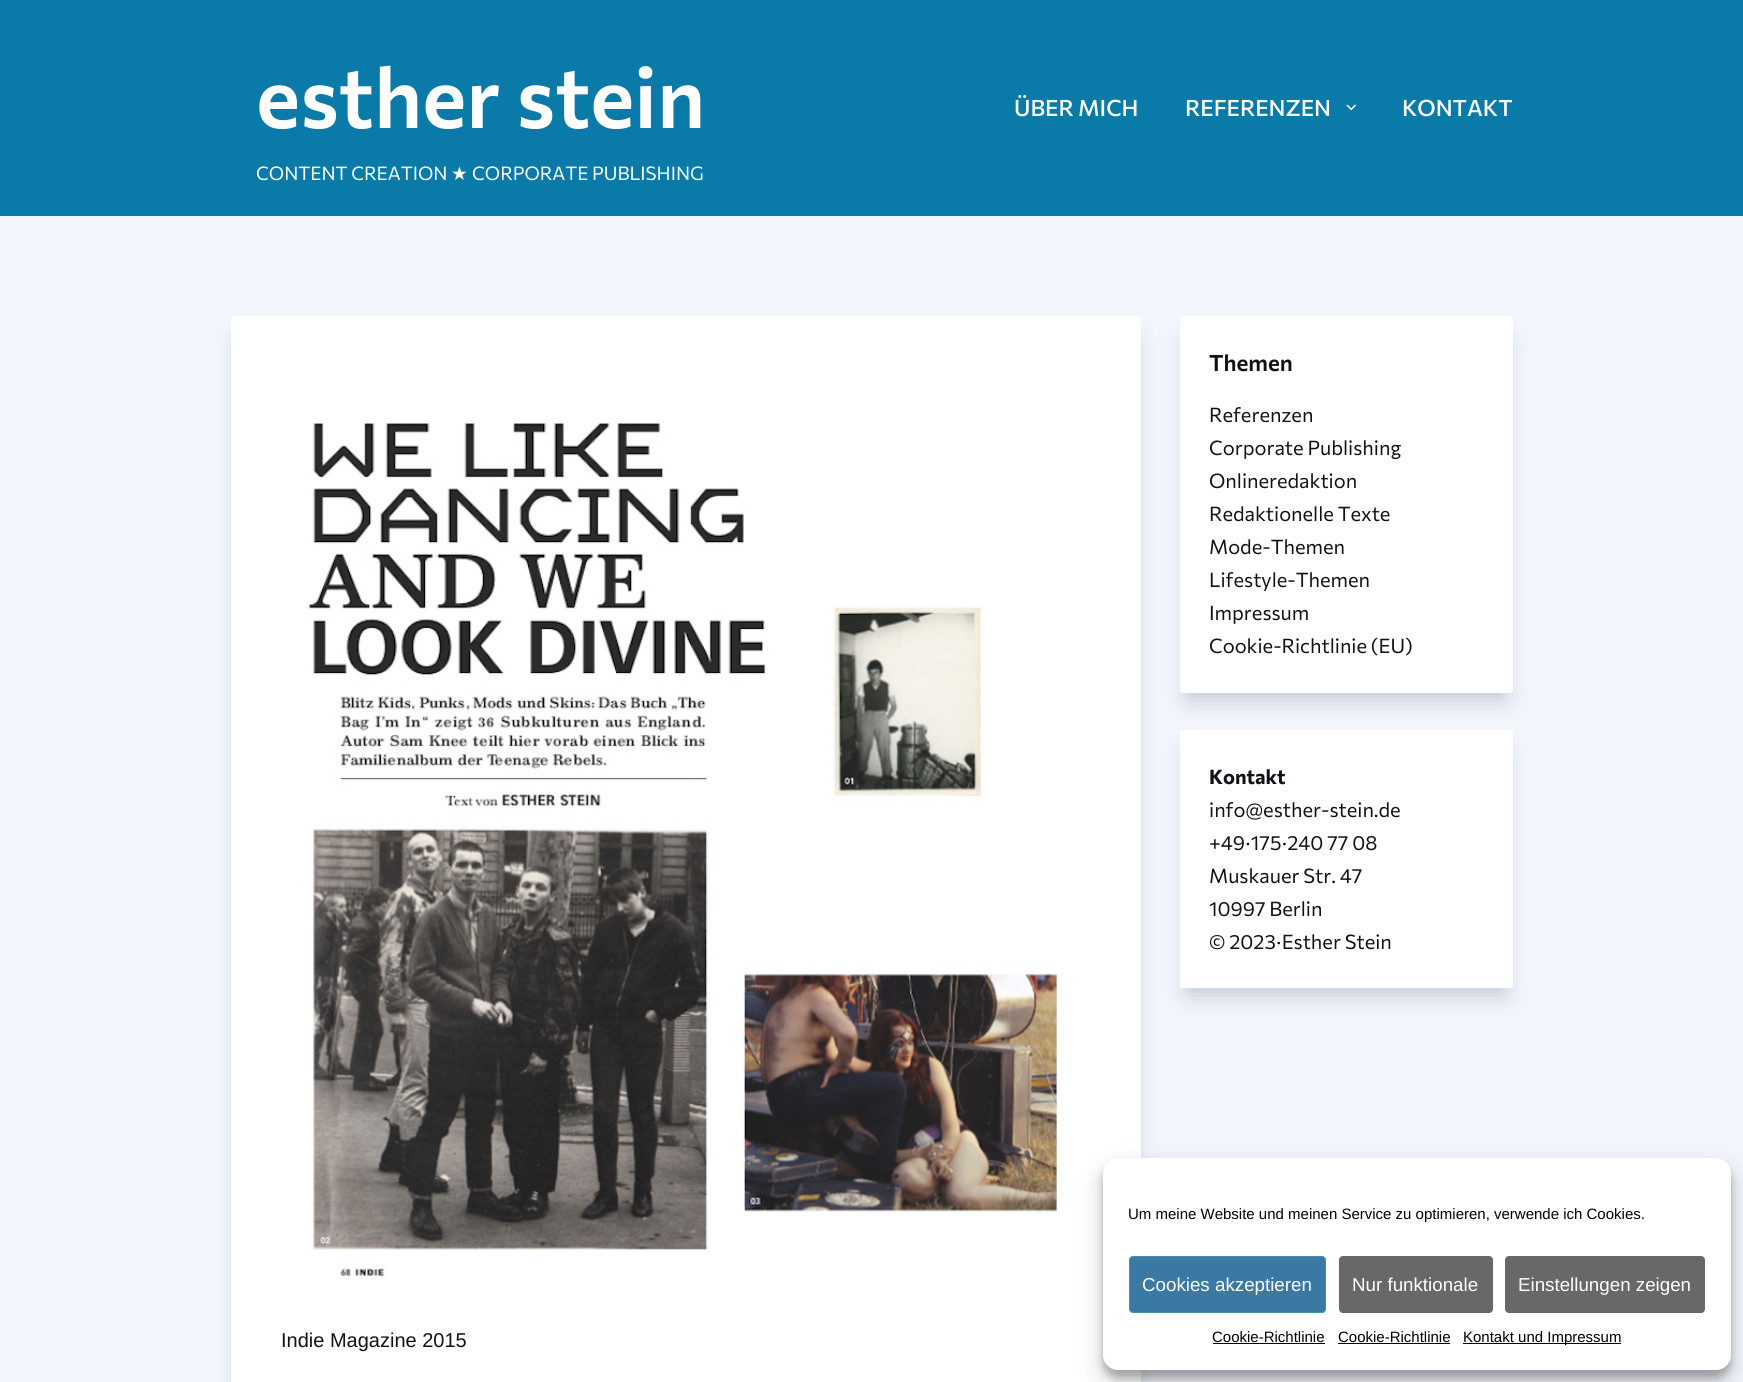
#include <cairo/cairo.h>
#include <math.h>
#include <stddef.h>

typedef struct { double x, y; const char *s; } line_t;
typedef struct { double x, y, w, h; unsigned color; } box_t;
static cairo_t *cr;

static void rgb(unsigned color)
{
	cairo_set_source_rgb(cr, (color >> 16) / 255.0, (color >> 8 & 255) / 255.0, (color & 255) / 255.0);
}

static void rrect(double x, double y, double w, double h, double r)
{
	cairo_new_sub_path(cr);
	cairo_arc(cr, x + w - r, y + h - r, r, 0, M_PI / 2);
	cairo_arc(cr, x + r, y + h - r, r, M_PI / 2, M_PI);
	cairo_arc(cr, x + r, y + r, r, M_PI, 1.5 * M_PI);
	cairo_arc(cr, x + w - r, y + r, r, 1.5 * M_PI, 2 * M_PI);
	cairo_close_path(cr);
}

static void soft_shadow(double x, double y, double w, double h, double r, double blur, double alpha)
{
	cairo_push_group_with_content(cr, CAIRO_CONTENT_ALPHA);
	cairo_set_operator(cr, CAIRO_OPERATOR_SOURCE);
	for (int i = 15; i >= -15 && fmin(w, h) + blur * i / 3 > 0; i -= 2) {
		double e = blur * i / 6;
		cairo_set_source_rgba(cr, 0, 0, 0, alpha * erfc((i - 1) / 8.5) / 2);
		rrect(x - e, y - e, w + 2 * e, h + 2 * e, fmax(0, fmin(r + e + blur * .6, fmin(w, h) / 2 + e)));
		cairo_fill(cr);
	}
	cairo_pattern_t *soft = cairo_pop_group(cr);
	cairo_mask(cr, soft);
	cairo_pattern_destroy(soft);
}

static void image(const char *path, double x, double y, double w, double h)
{
	cairo_surface_t *image = cairo_image_surface_create_from_png(path);
	cairo_save(cr);
	cairo_set_source_surface(cr, image, x, y);
	cairo_rectangle(cr, x, y, w, h);
	cairo_fill(cr);
	cairo_restore(cr);
	cairo_surface_destroy(image);
}

int main(void) {
	cairo_surface_t *surface = cairo_image_surface_create(CAIRO_FORMAT_RGB24, 1743, 1382);
	cr = cairo_create(surface);
	cairo_font_options_t *options = cairo_font_options_create();
	cairo_font_options_set_hint_metrics(options, CAIRO_HINT_METRICS_OFF);
	cairo_font_options_set_hint_style(options, CAIRO_HINT_STYLE_NONE);
	cairo_set_font_options(cr, options);
	cairo_set_miter_limit(cr, 4);
	rgb(0xf2f5fc);
	cairo_paint(cr);
	rgb(0x0a7aa9);
	cairo_rectangle(cr, 0, 0, 1743, 216);
	cairo_fill(cr);
	image("img/1.png", 1346, 104, 10, 7);
	rgb(0x243c57);
	soft_shadow(1188, 339, 317, 361, 0, 11, 0.24);
	rgb(0xffffff);
	rrect(1180, 316, 333, 377, 2.5);
	cairo_fill(cr);
	rgb(0x243c57);
	soft_shadow(1188, 753, 317, 242, 0, 11, 0.24);
	rgb(0xffffff);
	rrect(1180, 730, 333, 258, 2.5);
	cairo_fill(cr);
	rgb(0x243c57);
	soft_shadow(239, 339, 895, 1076, 0, 11, 0.24);
	rgb(0xffffff);
	rrect(231, 316, 910, 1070, 4);
	cairo_fill(cr);
	image("img/2.png", 308, 423, 749, 853);
	rgb(0x000000);
	soft_shadow(1103, 1165, 628, 213, 15, 4, 0.23);
	soft_shadow(1103, 1170, 628, 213, 15, 12.5, 0.19);
	rgb(0xffffff);
	rrect(1103.5, 1158.5, 627, 211, 14.5);
	cairo_fill_preserve(cr);
	cairo_set_line_width(cr, 1);
	cairo_stroke(cr);
	rgb(0x3b79a5);
	rrect(1129.5, 1256.5, 196, 56, 3.5);
	cairo_fill_preserve(cr);
	rgb(0x438fa8);
	cairo_stroke(cr);
	rgb(0x686868);
	rrect(1339.5, 1256.5, 153, 56, 3.5);
	cairo_fill_preserve(cr);
	cairo_stroke(cr);
	rrect(1505.5, 1256.5, 199, 56, 3.5);
	cairo_fill_preserve(cr);
	cairo_stroke(cr);
	{
		static const box_t items[] = {
			{1213, 1343, 112, 1, 0x000000},
			{1338, 1343, 112, 1, 0x000000},
			{1463, 1343, 158, 1, 0x000000},
		};
		for (size_t i = 0; i < sizeof items / sizeof *items; i++) {
			rgb(items[i].color);
			cairo_rectangle(cr, items[i].x, items[i].y, items[i].w, items[i].h);
			cairo_fill(cr);
		}
	}
	cairo_select_font_face(cr, "Commissioner SemiBold", CAIRO_FONT_SLANT_NORMAL, CAIRO_FONT_WEIGHT_NORMAL);
	cairo_set_font_size(cr, 83.75);
	rgb(0xffffff);
	cairo_move_to(cr, 256, 128);
	cairo_show_text(cr, "esther stein");
	cairo_select_font_face(cr, "Commissioner", CAIRO_FONT_SLANT_NORMAL, CAIRO_FONT_WEIGHT_NORMAL);
	cairo_set_font_size(cr, 18.75);
	cairo_move_to(cr, 256, 180);
	cairo_show_text(cr, "CONTENT CREATION");
	cairo_select_font_face(cr, "DejaVu Sans", CAIRO_FONT_SLANT_NORMAL, CAIRO_FONT_WEIGHT_NORMAL);
	cairo_move_to(cr, 451, 180);
	cairo_show_text(cr, "★");
	cairo_select_font_face(cr, "Commissioner", CAIRO_FONT_SLANT_NORMAL, CAIRO_FONT_WEIGHT_NORMAL);
	cairo_move_to(cr, 472, 180);
	cairo_show_text(cr, "CORPORATE PUBLISHING");
	cairo_select_font_face(cr, "Commissioner Medium", CAIRO_FONT_SLANT_NORMAL, CAIRO_FONT_WEIGHT_NORMAL);
	cairo_set_font_size(cr, 22.5);
	{
		static const line_t items[] = {
			{1014, 116, "ÜBER MICH"},
			{1185, 116, "REFERENZEN"},
			{1402, 116, "KONTAKT"},
		};
		for (size_t i = 0; i < sizeof items / sizeof *items; i++) {
			cairo_move_to(cr, items[i].x, items[i].y);
			cairo_show_text(cr, items[i].s);
		}
	}
	cairo_select_font_face(cr, "Commissioner SemiBold", CAIRO_FONT_SLANT_NORMAL, CAIRO_FONT_WEIGHT_NORMAL);
	rgb(0x121212);
	cairo_move_to(cr, 1209, 371);
	cairo_show_text(cr, "Themen");
	cairo_select_font_face(cr, "Commissioner", CAIRO_FONT_SLANT_NORMAL, CAIRO_FONT_WEIGHT_NORMAL);
	cairo_set_font_size(cr, 20);
	rgb(0x0f1318);
	{
		static const line_t items[] = {
			{1209, 422, "Referenzen"},
			{1209, 455, "Corporate Publishing"},
			{1209, 488, "Onlineredaktion"},
			{1209, 521, "Redaktionelle Texte"},
			{1209, 554, "Mode-Themen"},
			{1209, 587, "Lifestyle-Themen"},
			{1209, 620, "Impressum"},
			{1209, 653, "Cookie-Richtlinie (EU)"},
		};
		for (size_t i = 0; i < sizeof items / sizeof *items; i++) {
			cairo_move_to(cr, items[i].x, items[i].y);
			cairo_show_text(cr, items[i].s);
		}
	}
	cairo_select_font_face(cr, "Commissioner", CAIRO_FONT_SLANT_NORMAL, CAIRO_FONT_WEIGHT_BOLD);
	cairo_move_to(cr, 1209, 784);
	cairo_show_text(cr, "Kontakt");
	cairo_select_font_face(cr, "Commissioner", CAIRO_FONT_SLANT_NORMAL, CAIRO_FONT_WEIGHT_NORMAL);
	{
		static const line_t items[] = {
			{1209, 817, "info@esther-stein.de"},
			{1209, 850, "+49∙175∙240 77 08"},
			{1209, 883, "Muskauer Str. 47"},
			{1209, 916, "10997 Berlin"},
			{1209, 949, "© 2023∙Esther Stein"},
		};
		for (size_t i = 0; i < sizeof items / sizeof *items; i++) {
			cairo_move_to(cr, items[i].x, items[i].y);
			cairo_show_text(cr, items[i].s);
		}
	}
	cairo_select_font_face(cr, "Liberation Sans", CAIRO_FONT_SLANT_NORMAL, CAIRO_FONT_WEIGHT_NORMAL);
	cairo_move_to(cr, 281, 1347);
	cairo_show_text(cr, "Indie Magazine 2015");
	cairo_set_font_size(cr, 15);
	rgb(0x000000);
	cairo_move_to(cr, 1128, 1219);
	cairo_show_text(cr, "Um meine Website und meinen Service zu optimieren, verwende ich Cookies.");
	cairo_set_font_size(cr, 18.75);
	rgb(0xffffff);
	{
		static const line_t items[] = {
			{1142, 1291, "Cookies akzeptieren"},
			{1352, 1291, "Nur funktionale"},
			{1518, 1291, "Einstellungen zeigen"},
		};
		for (size_t i = 0; i < sizeof items / sizeof *items; i++) {
			cairo_move_to(cr, items[i].x, items[i].y);
			cairo_show_text(cr, items[i].s);
		}
	}
	cairo_set_font_size(cr, 15);
	rgb(0x000000);
	{
		static const line_t items[] = {
			{1212, 1342, "Cookie-Richtlinie"},
			{1338, 1342, "Cookie-Richtlinie"},
			{1463, 1342, "Kontakt und Impressum"},
		};
		for (size_t i = 0; i < sizeof items / sizeof *items; i++) {
			cairo_move_to(cr, items[i].x, items[i].y);
			cairo_show_text(cr, items[i].s);
		}
	}
	cairo_surface_write_to_png(surface, "page.png");
	cairo_font_options_destroy(options);
	cairo_destroy(cr);
	cairo_surface_destroy(surface);
	return 0;
}
